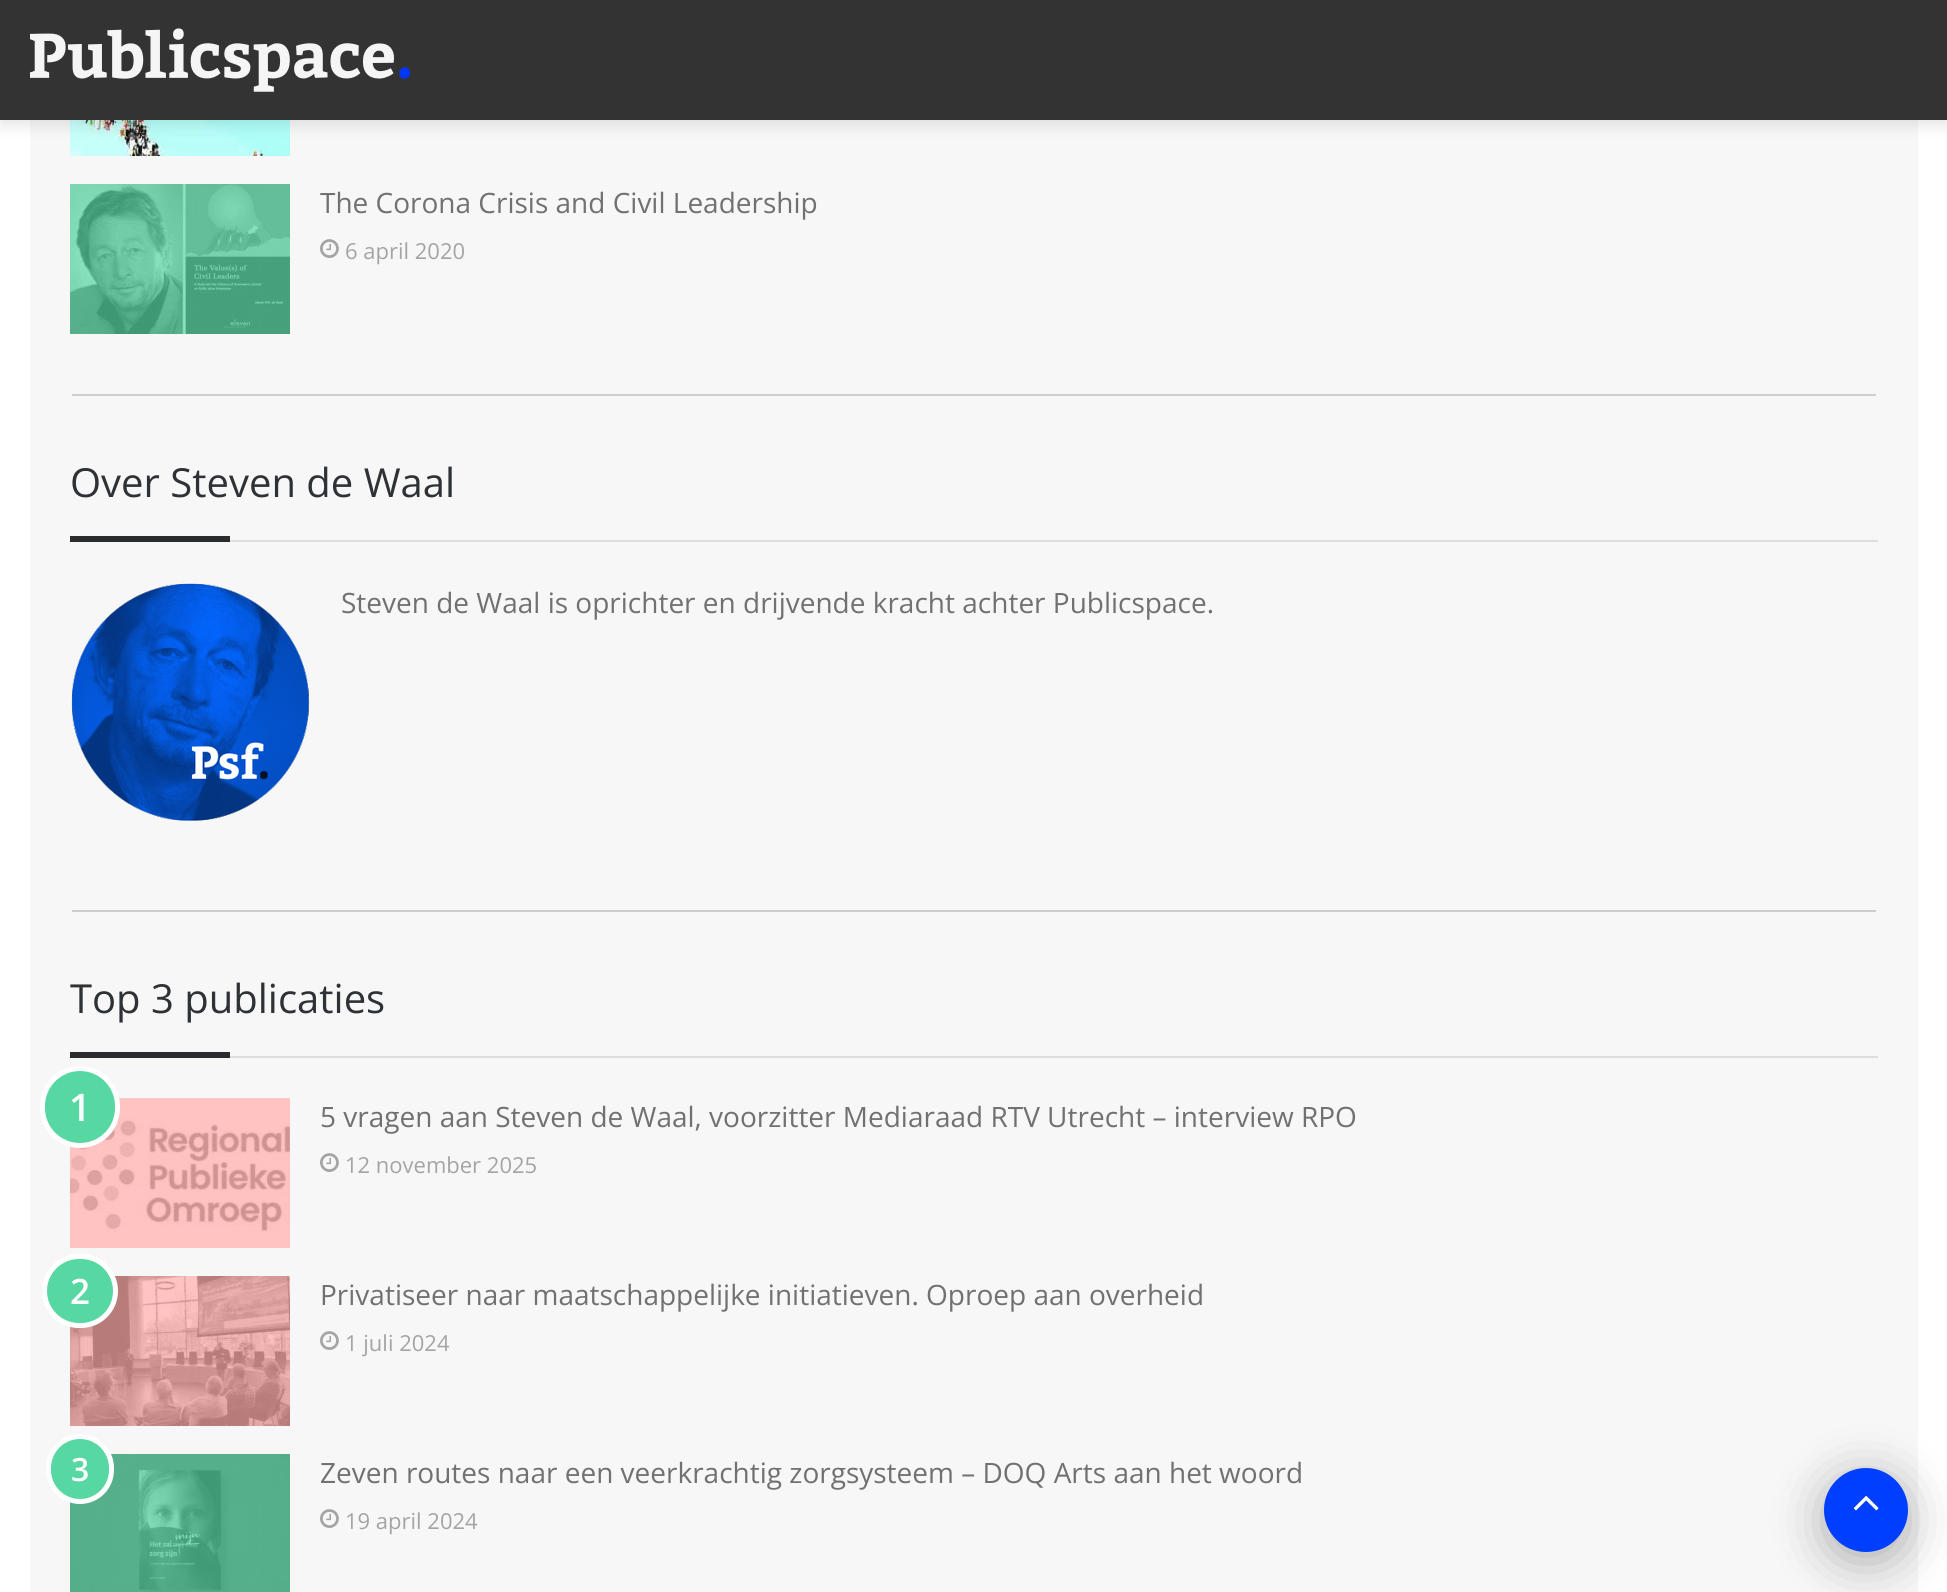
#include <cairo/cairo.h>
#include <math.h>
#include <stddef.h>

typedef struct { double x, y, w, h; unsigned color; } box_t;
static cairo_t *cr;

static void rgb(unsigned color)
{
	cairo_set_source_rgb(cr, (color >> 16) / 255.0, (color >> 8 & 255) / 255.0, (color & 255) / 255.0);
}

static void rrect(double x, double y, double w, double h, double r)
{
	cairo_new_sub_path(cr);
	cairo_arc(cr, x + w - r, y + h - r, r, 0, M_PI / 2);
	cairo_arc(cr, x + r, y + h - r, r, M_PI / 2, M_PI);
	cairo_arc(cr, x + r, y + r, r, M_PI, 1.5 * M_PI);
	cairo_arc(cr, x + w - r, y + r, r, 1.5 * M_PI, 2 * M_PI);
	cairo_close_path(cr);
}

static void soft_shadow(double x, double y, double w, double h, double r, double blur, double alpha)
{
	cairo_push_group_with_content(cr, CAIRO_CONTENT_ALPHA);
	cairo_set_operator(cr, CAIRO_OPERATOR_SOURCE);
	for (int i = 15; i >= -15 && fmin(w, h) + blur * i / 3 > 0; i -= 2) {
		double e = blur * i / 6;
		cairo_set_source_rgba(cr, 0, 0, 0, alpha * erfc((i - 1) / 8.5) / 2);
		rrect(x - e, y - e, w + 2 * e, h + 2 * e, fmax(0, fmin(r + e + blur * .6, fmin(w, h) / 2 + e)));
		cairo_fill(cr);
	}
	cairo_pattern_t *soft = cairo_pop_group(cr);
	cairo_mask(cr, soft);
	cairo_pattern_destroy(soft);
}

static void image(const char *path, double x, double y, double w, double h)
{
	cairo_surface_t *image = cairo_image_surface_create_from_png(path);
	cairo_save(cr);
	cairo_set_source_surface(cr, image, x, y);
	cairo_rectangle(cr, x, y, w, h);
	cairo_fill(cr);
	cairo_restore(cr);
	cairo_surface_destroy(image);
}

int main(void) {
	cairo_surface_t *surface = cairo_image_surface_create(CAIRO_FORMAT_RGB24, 1947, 1592);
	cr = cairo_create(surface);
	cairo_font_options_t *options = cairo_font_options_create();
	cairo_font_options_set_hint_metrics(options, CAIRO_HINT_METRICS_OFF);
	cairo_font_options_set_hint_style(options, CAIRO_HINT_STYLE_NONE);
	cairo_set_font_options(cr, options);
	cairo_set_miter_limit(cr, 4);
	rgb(0xffffff);
	cairo_paint(cr);
	rgb(0xf7f7f7);
	cairo_rectangle(cr, 30, 120, 1888, 1472);
	cairo_fill(cr);
	image("img/2.png", 70, 120, 220, 36);
	rgb(0x000000);
	soft_shadow(0, 6, 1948, 120, 0, 7, 0.1);
	rgb(0x333333);
	cairo_rectangle(cr, 0, 0, 1947, 120);
	cairo_fill(cr);
	image("img/1.png", 30, 28, 380, 64);
	rgb(0xcecece);
	cairo_rectangle(cr, 72, 394, 1804, 2);
	cairo_fill(cr);
	rgb(0x57d8a3);
	cairo_rectangle(cr, 70, 184, 220, 150);
	cairo_fill(cr);
	image("img/3.png", 70, 184, 220, 150);
	image("img/4.png", 320, 239, 19, 19);
	{
		static const box_t items[] = {
			{72, 910, 1804, 2, 0xcecece},
			{230, 540, 1648, 2, 0xdedede},
			{70, 536, 160, 6, 0x292b2f},
		};
		for (size_t i = 0; i < sizeof items / sizeof *items; i++) {
			rgb(items[i].color);
			cairo_rectangle(cr, items[i].x, items[i].y, items[i].w, items[i].h);
			cairo_fill(cr);
		}
	}
	image("img/5.png", 71, 583, 239, 238);
	{
		static const box_t items[] = {
			{230, 1056, 1648, 2, 0xdedede},
			{70, 1052, 160, 6, 0x292b2f},
			{70, 1098, 220, 150, 0xffaba7},
		};
		for (size_t i = 0; i < sizeof items / sizeof *items; i++) {
			rgb(items[i].color);
			cairo_rectangle(cr, items[i].x, items[i].y, items[i].w, items[i].h);
			cairo_fill(cr);
		}
	}
	image("img/6.png", 70, 1098, 220, 150);
	rgb(0x57d8a3);
	rrect(42.5, 1068.5, 75, 77, 37.5);
	cairo_fill_preserve(cr);
	rgb(0xffffff);
	cairo_set_line_width(cr, 5);
	cairo_stroke(cr);
	image("img/4.png", 320, 1153, 19, 19);
	rgb(0xffaba7);
	cairo_rectangle(cr, 70, 1276, 220, 150);
	cairo_fill(cr);
	image("img/7.png", 70, 1276, 220, 150);
	rgb(0x57d8a3);
	rrect(44.5, 1256.5, 71, 69, 34.5);
	cairo_fill_preserve(cr);
	rgb(0xffffff);
	cairo_stroke(cr);
	image("img/4.png", 320, 1331, 19, 19);
	rgb(0x57d8a3);
	cairo_rectangle(cr, 70, 1454, 220, 138);
	cairo_fill(cr);
	image("img/8.png", 70, 1454, 220, 138);
	rrect(48.5, 1436.5, 63, 65, 31.5);
	cairo_fill_preserve(cr);
	rgb(0xffffff);
	cairo_stroke(cr);
	image("img/4.png", 320, 1509, 19, 19);
	rgb(0x000000);
	soft_shadow(1824, 1478, 84, 84, 42, 25, 0.3);
	rgb(0x003fff);
	cairo_arc(cr, 1866, 1510, 42, 0, 2 * M_PI);
	cairo_fill(cr);
	image("img/9.png", 1853, 1496, 26, 15);
	cairo_select_font_face(cr, "Open Sans", CAIRO_FONT_SLANT_NORMAL, CAIRO_FONT_WEIGHT_NORMAL);
	cairo_set_font_size(cr, 28);
	rgb(0x717171);
	cairo_move_to(cr, 320, 213);
	cairo_show_text(cr, "The Corona Crisis and Civil Leadership");
	cairo_set_font_size(cr, 22);
	rgb(0xa4a4a4);
	cairo_move_to(cr, 345, 259);
	cairo_show_text(cr, "6 april 2020");
	cairo_set_font_size(cr, 40);
	rgb(0x2e3136);
	cairo_move_to(cr, 70, 497);
	cairo_show_text(cr, "Over Steven de Waal");
	cairo_set_font_size(cr, 28);
	rgb(0x717171);
	cairo_move_to(cr, 341, 613);
	cairo_show_text(cr, "Steven de Waal is oprichter en drijvende kracht achter Publicspace.");
	cairo_set_font_size(cr, 40);
	rgb(0x2e3136);
	cairo_move_to(cr, 70, 1013);
	cairo_show_text(cr, "Top 3 publicaties");
	cairo_select_font_face(cr, "Open Sans SemiBold", CAIRO_FONT_SLANT_NORMAL, CAIRO_FONT_WEIGHT_NORMAL);
	cairo_set_font_size(cr, 38);
	rgb(0xffffff);
	cairo_move_to(cr, 69, 1121);
	cairo_show_text(cr, "1");
	cairo_select_font_face(cr, "Open Sans", CAIRO_FONT_SLANT_NORMAL, CAIRO_FONT_WEIGHT_NORMAL);
	cairo_set_font_size(cr, 28);
	rgb(0x717171);
	cairo_move_to(cr, 320, 1127);
	cairo_show_text(cr, "5 vragen aan Steven de Waal, voorzitter Mediaraad RTV Utrecht – interview RPO");
	cairo_set_font_size(cr, 22);
	rgb(0xa4a4a4);
	cairo_move_to(cr, 345, 1173);
	cairo_show_text(cr, "12 november 2025");
	cairo_select_font_face(cr, "Open Sans SemiBold", CAIRO_FONT_SLANT_NORMAL, CAIRO_FONT_WEIGHT_NORMAL);
	cairo_set_font_size(cr, 35);
	rgb(0xffffff);
	cairo_move_to(cr, 70, 1304);
	cairo_show_text(cr, "2");
	cairo_select_font_face(cr, "Open Sans", CAIRO_FONT_SLANT_NORMAL, CAIRO_FONT_WEIGHT_NORMAL);
	cairo_set_font_size(cr, 28);
	rgb(0x717171);
	cairo_move_to(cr, 320, 1305);
	cairo_show_text(cr, "Privatiseer naar maatschappelijke initiatieven. Oproep aan overheid");
	cairo_set_font_size(cr, 22);
	rgb(0xa4a4a4);
	cairo_move_to(cr, 345, 1351);
	cairo_show_text(cr, "1 juli 2024");
	cairo_select_font_face(cr, "Open Sans SemiBold", CAIRO_FONT_SLANT_NORMAL, CAIRO_FONT_WEIGHT_NORMAL);
	cairo_set_font_size(cr, 32);
	rgb(0xffffff);
	cairo_move_to(cr, 71, 1481);
	cairo_show_text(cr, "3");
	cairo_select_font_face(cr, "Open Sans", CAIRO_FONT_SLANT_NORMAL, CAIRO_FONT_WEIGHT_NORMAL);
	cairo_set_font_size(cr, 28);
	rgb(0x717171);
	cairo_move_to(cr, 320, 1483);
	cairo_show_text(cr, "Zeven routes naar een veerkrachtig zorgsysteem – DOQ Arts aan het woord");
	cairo_set_font_size(cr, 22);
	rgb(0xa4a4a4);
	cairo_move_to(cr, 345, 1529);
	cairo_show_text(cr, "19 april 2024");
	cairo_surface_write_to_png(surface, "page.png");
	cairo_font_options_destroy(options);
	cairo_destroy(cr);
	cairo_surface_destroy(surface);
	return 0;
}
